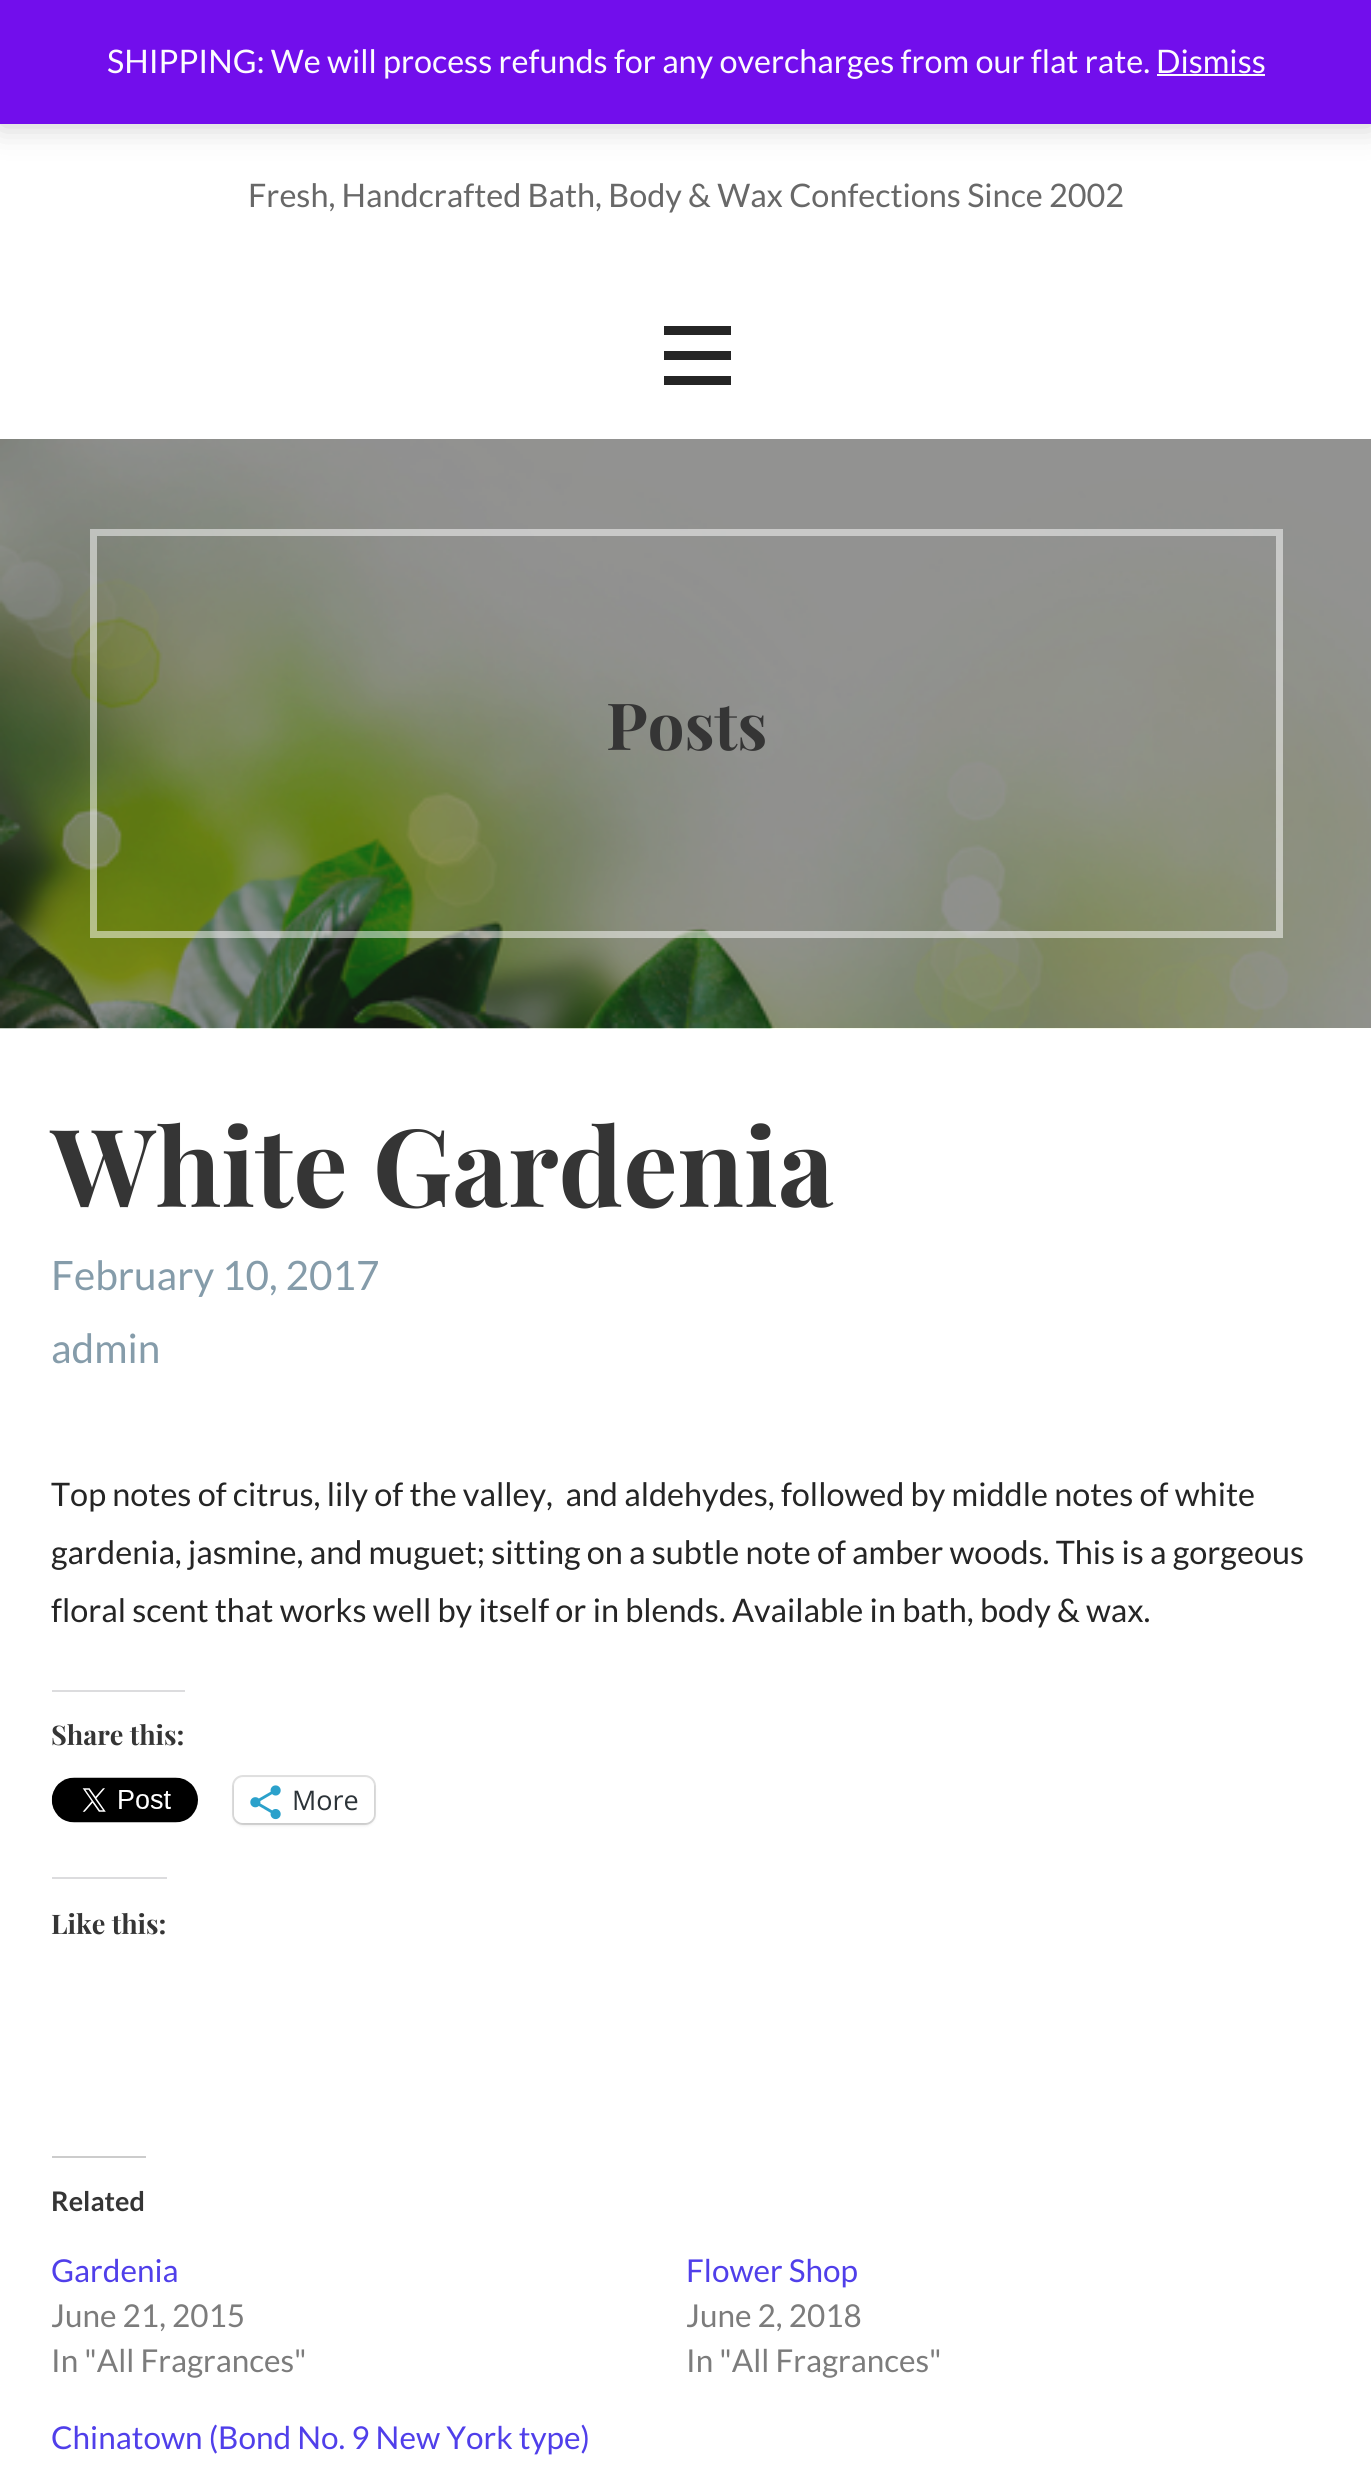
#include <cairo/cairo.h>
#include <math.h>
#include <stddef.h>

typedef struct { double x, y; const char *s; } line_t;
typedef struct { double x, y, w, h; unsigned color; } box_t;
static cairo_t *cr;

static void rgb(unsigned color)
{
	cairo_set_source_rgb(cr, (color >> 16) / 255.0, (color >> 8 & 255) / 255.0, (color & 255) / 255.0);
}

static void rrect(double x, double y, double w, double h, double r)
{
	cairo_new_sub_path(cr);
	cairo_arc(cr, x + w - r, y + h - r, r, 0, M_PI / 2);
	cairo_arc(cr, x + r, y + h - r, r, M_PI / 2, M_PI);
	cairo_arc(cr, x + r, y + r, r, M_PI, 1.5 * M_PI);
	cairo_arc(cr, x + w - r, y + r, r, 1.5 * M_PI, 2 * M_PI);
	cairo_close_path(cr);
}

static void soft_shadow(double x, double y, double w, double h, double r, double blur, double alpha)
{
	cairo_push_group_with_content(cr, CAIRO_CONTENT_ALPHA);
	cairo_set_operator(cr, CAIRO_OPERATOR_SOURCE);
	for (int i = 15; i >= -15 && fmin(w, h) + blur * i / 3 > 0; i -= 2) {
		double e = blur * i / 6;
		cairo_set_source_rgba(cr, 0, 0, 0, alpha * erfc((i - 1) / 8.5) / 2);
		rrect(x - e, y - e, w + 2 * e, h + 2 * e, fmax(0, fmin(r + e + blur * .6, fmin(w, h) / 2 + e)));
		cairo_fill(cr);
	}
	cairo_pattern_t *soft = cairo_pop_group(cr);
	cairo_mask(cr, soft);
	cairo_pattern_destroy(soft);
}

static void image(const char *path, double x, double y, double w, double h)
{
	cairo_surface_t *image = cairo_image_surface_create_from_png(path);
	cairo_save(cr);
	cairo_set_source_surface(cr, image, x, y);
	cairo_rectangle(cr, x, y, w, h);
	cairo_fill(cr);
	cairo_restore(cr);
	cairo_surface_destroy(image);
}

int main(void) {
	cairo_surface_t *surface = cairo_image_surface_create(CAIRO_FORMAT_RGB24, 1371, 2472);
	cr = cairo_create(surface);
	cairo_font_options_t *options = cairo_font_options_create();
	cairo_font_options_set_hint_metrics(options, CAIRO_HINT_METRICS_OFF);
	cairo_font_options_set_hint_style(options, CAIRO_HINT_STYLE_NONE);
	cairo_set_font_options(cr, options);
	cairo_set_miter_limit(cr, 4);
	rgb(0xffffff);
	cairo_paint(cr);
	rgb(0x000000);
	soft_shadow(0, 2, 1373, 124, 0, 16, 0.2);
	{
		static const box_t items[] = {
			{0, 0, 1371, 124, 0x720eec},
			{1157, 74, 108, 2, 0xfcfbfe},
			{664, 326, 67, 9, 0x252525},
			{664, 351, 67, 9, 0x252525},
			{664, 376, 67, 9, 0x252525},
		};
		for (size_t i = 0; i < sizeof items / sizeof *items; i++) {
			rgb(items[i].color);
			cairo_rectangle(cr, items[i].x, items[i].y, items[i].w, items[i].h);
			cairo_fill(cr);
		}
	}
	image("img/1.png", 0, 439, 1371, 590);
	cairo_rectangle(cr, 93.5, 532.5, 1186, 402);
	cairo_set_source_rgba(cr, 1, 1, 1, 0.5);
	cairo_set_line_width(cr, 7);
	cairo_stroke(cr);
	rgb(0xdcdcde);
	cairo_rectangle(cr, 52, 1690, 133, 2);
	cairo_fill(cr);
	image("img/2.png", 51, 1777, 147, 46);
	rrect(233, 1776, 142, 48, 10);
	rgb(0xe0e0e0);
	cairo_set_line_width(cr, 2);
	cairo_stroke(cr);
	rgb(0x000000);
	soft_shadow(234, 1780, 140, 45, 9, 2, 0.12);
	rgb(0xffffff);
	rrect(234, 1778, 140, 45, 9);
	cairo_fill(cr);
	image("img/3.png", 250, 1785, 31, 35);
	rgb(0xdcdcde);
	cairo_rectangle(cr, 52, 1877, 115, 2);
	cairo_fill(cr);
	rgb(0xcccccc);
	cairo_rectangle(cr, 52, 2156, 94, 2);
	cairo_fill(cr);
	cairo_select_font_face(cr, "Lato", CAIRO_FONT_SLANT_NORMAL, CAIRO_FONT_WEIGHT_NORMAL);
	cairo_set_font_size(cr, 32.4);
	rgb(0xfcfbfe);
	cairo_move_to(cr, 107, 73);
	cairo_show_text(cr, "SHIPPING: We will process refunds for any overcharges from our flat rate.");
	cairo_move_to(cr, 1156, 73);
	cairo_show_text(cr, "Dismiss");
	rgb(0x686868);
	cairo_move_to(cr, 248, 207);
	cairo_show_text(cr, "Fresh, Handcrafted Bath, Body & Wax Confections Since 2002");
	cairo_select_font_face(cr, "Playfair Display", CAIRO_FONT_SLANT_NORMAL, CAIRO_FONT_WEIGHT_BOLD);
	cairo_set_font_size(cr, 65);
	rgb(0x353535);
	cairo_move_to(cr, 606, 750);
	cairo_show_text(cr, "Posts");
	cairo_set_font_size(cr, 108);
	cairo_move_to(cr, 51, 1207);
	cairo_show_text(cr, "White Gardenia");
	cairo_select_font_face(cr, "Lato", CAIRO_FONT_SLANT_NORMAL, CAIRO_FONT_WEIGHT_NORMAL);
	cairo_set_font_size(cr, 40.5);
	rgb(0x859caa);
	cairo_move_to(cr, 51, 1290);
	cairo_show_text(cr, "February 10, 2017");
	cairo_move_to(cr, 51, 1363);
	cairo_show_text(cr, "admin");
	cairo_set_font_size(cr, 32.4);
	rgb(0x252525);
	{
		static const line_t items[] = {
			{51, 1506, "Top notes of citrus, lily of the valley,  and aldehydes, followed by middle notes of white"},
			{51, 1564, "gardenia, jasmine, and muguet; sitting on a subtle note of amber woods. This is a gorgeous"},
			{51, 1622, "floral scent that works well by itself or in blends. Available in bath, body & wax."},
		};
		for (size_t i = 0; i < sizeof items / sizeof *items; i++) {
			cairo_move_to(cr, items[i].x, items[i].y);
			cairo_show_text(cr, items[i].s);
		}
	}
	cairo_select_font_face(cr, "Playfair Display", CAIRO_FONT_SLANT_NORMAL, CAIRO_FONT_WEIGHT_BOLD);
	cairo_set_font_size(cr, 27);
	rgb(0x353535);
	cairo_move_to(cr, 51, 1745);
	cairo_show_text(cr, "Share this:");
	cairo_select_font_face(cr, "Open Sans", CAIRO_FONT_SLANT_NORMAL, CAIRO_FONT_WEIGHT_NORMAL);
	rgb(0x2c3338);
	cairo_move_to(cr, 292, 1810);
	cairo_show_text(cr, "More");
	cairo_select_font_face(cr, "Playfair Display", CAIRO_FONT_SLANT_NORMAL, CAIRO_FONT_WEIGHT_BOLD);
	rgb(0x353535);
	cairo_move_to(cr, 51, 1934);
	cairo_show_text(cr, "Like this:");
	cairo_select_font_face(cr, "Lato", CAIRO_FONT_SLANT_NORMAL, CAIRO_FONT_WEIGHT_BOLD);
	cairo_move_to(cr, 51, 2211);
	cairo_show_text(cr, "Related");
	cairo_select_font_face(cr, "Lato", CAIRO_FONT_SLANT_NORMAL, CAIRO_FONT_WEIGHT_NORMAL);
	cairo_set_font_size(cr, 31.5);
	rgb(0x503fea);
	cairo_move_to(cr, 51, 2282);
	cairo_show_text(cr, "Gardenia");
	rgb(0x7c7c7c);
	cairo_move_to(cr, 51, 2327);
	cairo_show_text(cr, "June 21, 2015");
	cairo_move_to(cr, 51, 2372);
	cairo_show_text(cr, "In \"All Fragrances\"");
	rgb(0x503fea);
	cairo_move_to(cr, 686, 2282);
	cairo_show_text(cr, "Flower Shop");
	rgb(0x7c7c7c);
	cairo_move_to(cr, 686, 2327);
	cairo_show_text(cr, "June 2, 2018");
	cairo_move_to(cr, 686, 2372);
	cairo_show_text(cr, "In \"All Fragrances\"");
	rgb(0x503fea);
	cairo_move_to(cr, 51, 2449);
	cairo_show_text(cr, "Chinatown (Bond No. 9 New York type)");
	cairo_surface_write_to_png(surface, "page.png");
	cairo_font_options_destroy(options);
	cairo_destroy(cr);
	cairo_surface_destroy(surface);
	return 0;
}
